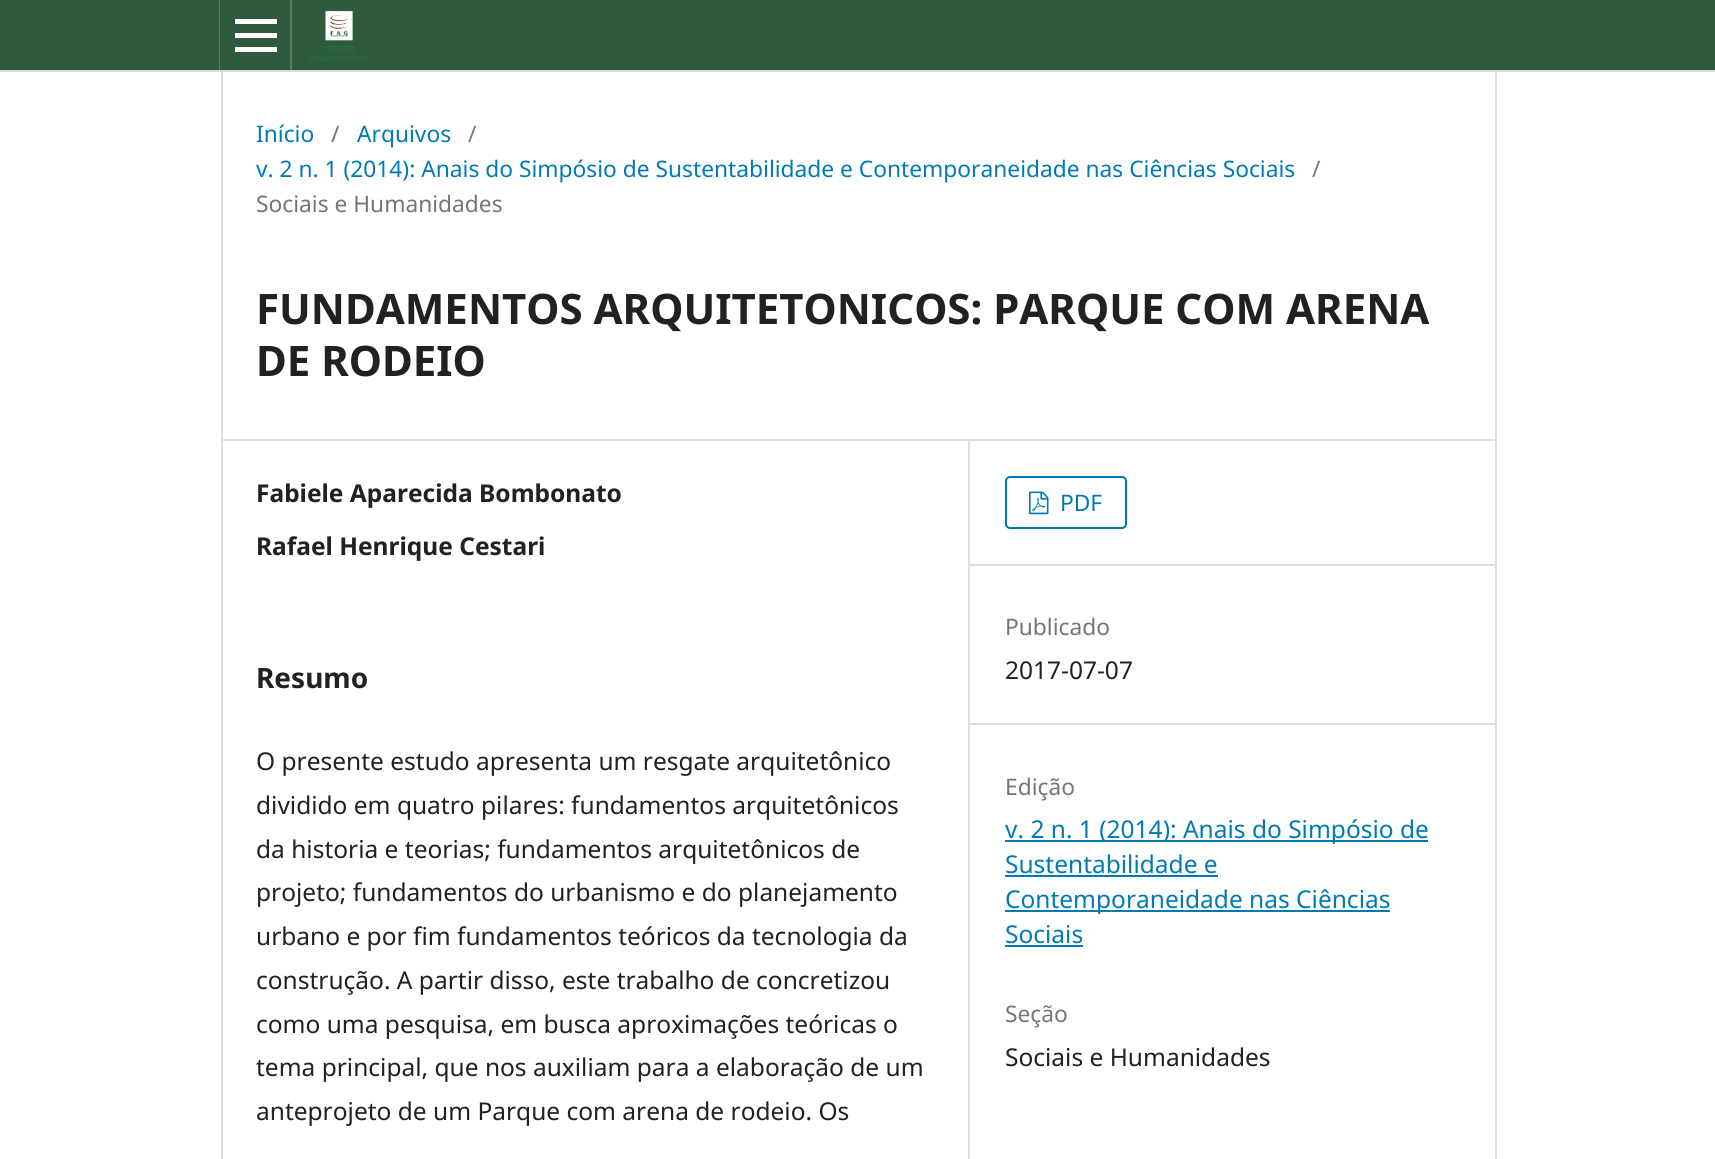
#include <cairo/cairo.h>
#include <math.h>
#include <stddef.h>

typedef struct { double x, y; const char *s; } line_t;
typedef struct { double x, y, w, h; unsigned color; } box_t;
static cairo_t *cr;

static void rgb(unsigned color)
{
	cairo_set_source_rgb(cr, (color >> 16) / 255.0, (color >> 8 & 255) / 255.0, (color & 255) / 255.0);
}

static void rrect(double x, double y, double w, double h, double r)
{
	cairo_new_sub_path(cr);
	cairo_arc(cr, x + w - r, y + h - r, r, 0, M_PI / 2);
	cairo_arc(cr, x + r, y + h - r, r, M_PI / 2, M_PI);
	cairo_arc(cr, x + r, y + r, r, M_PI, 1.5 * M_PI);
	cairo_arc(cr, x + w - r, y + r, r, 1.5 * M_PI, 2 * M_PI);
	cairo_close_path(cr);
}

static void image(const char *path, double x, double y, double w, double h)
{
	cairo_surface_t *image = cairo_image_surface_create_from_png(path);
	cairo_save(cr);
	cairo_set_source_surface(cr, image, x, y);
	cairo_rectangle(cr, x, y, w, h);
	cairo_fill(cr);
	cairo_restore(cr);
	cairo_surface_destroy(image);
}

int main(void) {
	cairo_surface_t *surface = cairo_image_surface_create(CAIRO_FORMAT_RGB24, 1715, 1159);
	cr = cairo_create(surface);
	cairo_font_options_t *options = cairo_font_options_create();
	cairo_font_options_set_hint_metrics(options, CAIRO_HINT_METRICS_OFF);
	cairo_font_options_set_hint_style(options, CAIRO_HINT_STYLE_NONE);
	cairo_set_font_options(cr, options);
	cairo_set_miter_limit(cr, 4);
	rgb(0xffffff);
	cairo_paint(cr);
	{
		static const box_t items[] = {
			{0, 0, 1715, 70, 0x305a3e},
			{0, 70, 1715, 2, 0xdddddd},
			{219, 0, 1, 70, 0x597b65},
			{290, 0, 2, 70, 0x597b65},
			{235, 47, 42, 5, 0xffffff},
			{235, 19, 42, 5, 0xffffff},
			{235, 33, 42, 5, 0xffffff},
		};
		for (size_t i = 0; i < sizeof items / sizeof *items; i++) {
			rgb(items[i].color);
			cairo_rectangle(cr, items[i].x, items[i].y, items[i].w, items[i].h);
			cairo_fill(cr);
		}
	}
	image("img/1.png", 310, 10, 59, 52);
	{
		static const box_t items[] = {
			{221, 439, 1274, 2, 0xdddddd},
			{221, 72, 2, 1087, 0xdddddd},
			{968, 441, 2, 718, 0xdddddd},
			{970, 564, 525, 2, 0xdddddd},
		};
		for (size_t i = 0; i < sizeof items / sizeof *items; i++) {
			rgb(items[i].color);
			cairo_rectangle(cr, items[i].x, items[i].y, items[i].w, items[i].h);
			cairo_fill(cr);
		}
	}
	rrect(1006, 477, 120, 51, 4);
	rgb(0x007ab2);
	cairo_stroke(cr);
	image("img/2.png", 1029, 491, 20, 24);
	{
		static const box_t items[] = {
			{970, 723, 525, 2, 0xdddddd},
			{1005, 840, 423, 2, 0x007ab2},
			{1005, 875, 213, 2, 0x007ab2},
			{1005, 910, 385, 2, 0x007ab2},
			{1005, 945, 78, 2, 0x007ab2},
			{1495, 72, 2, 1087, 0xdddddd},
		};
		for (size_t i = 0; i < sizeof items / sizeof *items; i++) {
			rgb(items[i].color);
			cairo_rectangle(cr, items[i].x, items[i].y, items[i].w, items[i].h);
			cairo_fill(cr);
		}
	}
	cairo_select_font_face(cr, "Noto Sans", CAIRO_FONT_SLANT_NORMAL, CAIRO_FONT_WEIGHT_NORMAL);
	cairo_set_font_size(cr, 22.75);
	rgb(0x007ab2);
	cairo_move_to(cr, 256, 142);
	cairo_show_text(cr, "Início");
	rgb(0x757575);
	cairo_move_to(cr, 331, 142);
	cairo_show_text(cr, "/");
	rgb(0x007ab2);
	cairo_move_to(cr, 357, 142);
	cairo_show_text(cr, "Arquivos");
	rgb(0x757575);
	cairo_move_to(cr, 468, 142);
	cairo_show_text(cr, "/");
	rgb(0x007ab2);
	cairo_move_to(cr, 256, 177);
	cairo_show_text(cr, "v. 2 n. 1 (2014): Anais do Simpósio de Sustentabilidade e Contemporaneidade nas Ciências Sociais");
	rgb(0x757575);
	cairo_move_to(cr, 1312, 177);
	cairo_show_text(cr, "/");
	cairo_move_to(cr, 256, 212);
	cairo_show_text(cr, "Sociais e Humanidades");
	cairo_select_font_face(cr, "Noto Sans", CAIRO_FONT_SLANT_NORMAL, CAIRO_FONT_WEIGHT_BOLD);
	cairo_set_font_size(cr, 42);
	rgb(0x212121);
	cairo_move_to(cr, 256, 324);
	cairo_show_text(cr, "FUNDAMENTOS ARQUITETONICOS: PARQUE COM ARENA");
	cairo_move_to(cr, 256, 376);
	cairo_show_text(cr, "DE RODEIO");
	cairo_set_font_size(cr, 24.5);
	cairo_move_to(cr, 256, 502);
	cairo_show_text(cr, "Fabiele Aparecida Bombonato");
	cairo_move_to(cr, 256, 555);
	cairo_show_text(cr, "Rafael Henrique Cestari");
	cairo_set_font_size(cr, 28);
	cairo_move_to(cr, 256, 688);
	cairo_show_text(cr, "Resumo");
	cairo_select_font_face(cr, "Noto Sans", CAIRO_FONT_SLANT_NORMAL, CAIRO_FONT_WEIGHT_NORMAL);
	cairo_set_font_size(cr, 24.5);
	{
		static const line_t items[] = {
			{256, 770, "O presente estudo apresenta um resgate arquitetônico"},
			{256, 814, "dividido em quatro pilares: fundamentos arquitetônicos"},
			{256, 858, "da historia e teorias; fundamentos arquitetônicos de"},
			{256, 901, "projeto; fundamentos do urbanismo e do planejamento"},
			{256, 945, "urbano e por fim fundamentos teóricos da tecnologia da"},
			{256, 989, "construção. A partir disso, este trabalho de concretizou"},
			{256, 1033, "como uma pesquisa, em busca aproximações teóricas o"},
			{256, 1076, "tema principal, que nos auxiliam para a elaboração de um"},
			{256, 1120, "anteprojeto de um Parque com arena de rodeio. Os"},
		};
		for (size_t i = 0; i < sizeof items / sizeof *items; i++) {
			cairo_move_to(cr, items[i].x, items[i].y);
			cairo_show_text(cr, items[i].s);
		}
	}
	cairo_set_font_size(cr, 22.75);
	rgb(0x007ab2);
	cairo_move_to(cr, 1060, 511);
	cairo_show_text(cr, "PDF");
	rgb(0x757575);
	cairo_move_to(cr, 1005, 635);
	cairo_show_text(cr, "Publicado");
	cairo_set_font_size(cr, 24.5);
	rgb(0x212121);
	cairo_move_to(cr, 1005, 679);
	cairo_show_text(cr, "2017-07-07");
	cairo_set_font_size(cr, 22.75);
	rgb(0x757575);
	cairo_move_to(cr, 1005, 795);
	cairo_show_text(cr, "Edição");
	cairo_set_font_size(cr, 24.5);
	rgb(0x007ab2);
	{
		static const line_t items[] = {
			{1005, 838, "v. 2 n. 1 (2014): Anais do Simpósio de"},
			{1005, 873, "Sustentabilidade e"},
			{1005, 908, "Contemporaneidade nas Ciências"},
			{1005, 943, "Sociais"},
		};
		for (size_t i = 0; i < sizeof items / sizeof *items; i++) {
			cairo_move_to(cr, items[i].x, items[i].y);
			cairo_show_text(cr, items[i].s);
		}
	}
	cairo_set_font_size(cr, 22.75);
	rgb(0x757575);
	cairo_move_to(cr, 1005, 1022);
	cairo_show_text(cr, "Seção");
	cairo_set_font_size(cr, 24.5);
	rgb(0x212121);
	cairo_move_to(cr, 1005, 1066);
	cairo_show_text(cr, "Sociais e Humanidades");
	cairo_surface_write_to_png(surface, "page.png");
	cairo_font_options_destroy(options);
	cairo_destroy(cr);
	cairo_surface_destroy(surface);
	return 0;
}
